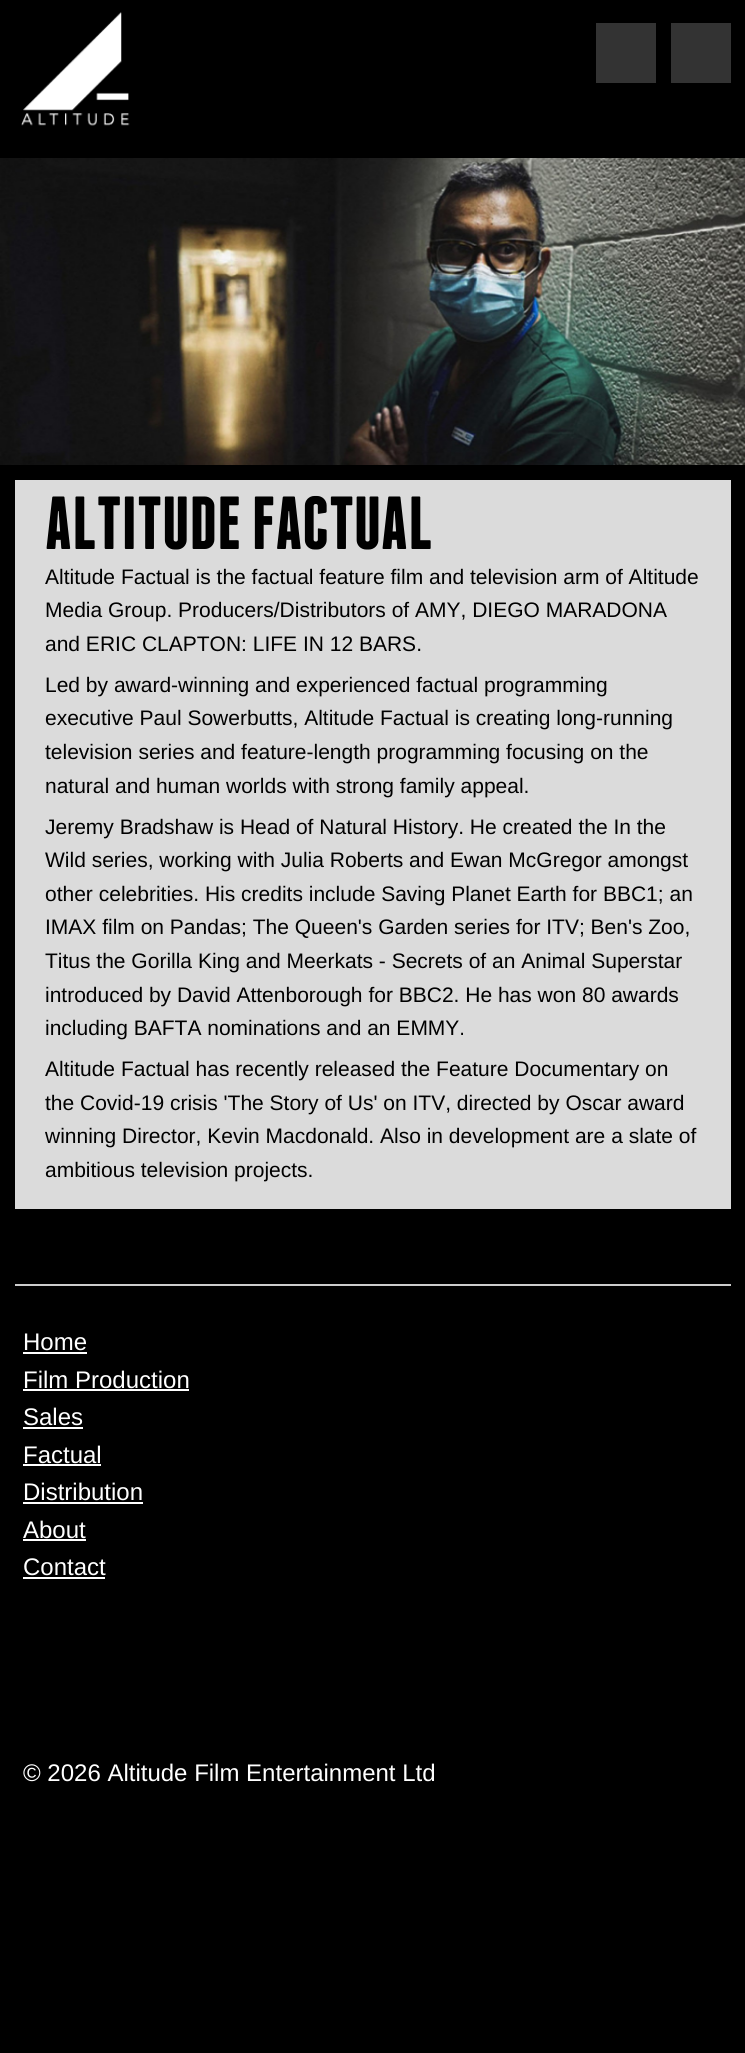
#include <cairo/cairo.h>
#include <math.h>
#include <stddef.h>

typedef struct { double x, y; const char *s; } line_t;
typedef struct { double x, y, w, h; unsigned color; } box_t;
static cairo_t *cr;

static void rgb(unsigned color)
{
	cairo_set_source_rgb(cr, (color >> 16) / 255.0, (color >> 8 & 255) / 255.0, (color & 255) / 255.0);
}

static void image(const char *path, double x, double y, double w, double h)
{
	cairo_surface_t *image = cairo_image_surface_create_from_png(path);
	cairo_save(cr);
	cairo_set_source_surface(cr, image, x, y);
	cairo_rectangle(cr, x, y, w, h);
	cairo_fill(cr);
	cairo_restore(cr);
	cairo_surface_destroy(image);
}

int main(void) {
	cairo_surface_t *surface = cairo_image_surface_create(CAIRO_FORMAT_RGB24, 745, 2053);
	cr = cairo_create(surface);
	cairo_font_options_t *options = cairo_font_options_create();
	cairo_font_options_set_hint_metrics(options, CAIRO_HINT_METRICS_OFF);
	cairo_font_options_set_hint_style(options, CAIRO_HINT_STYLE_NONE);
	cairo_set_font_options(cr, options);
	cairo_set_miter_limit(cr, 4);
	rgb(0x000000);
	cairo_paint(cr);
	image("img/1.png", 21, 12, 109, 114);
	rgb(0x333333);
	cairo_rectangle(cr, 596, 23, 60, 60);
	cairo_fill(cr);
	cairo_rectangle(cr, 671, 23, 60, 60);
	cairo_fill(cr);
	image("img/2.png", 0, 158, 745, 307);
	{
		static const box_t items[] = {
			{15, 480, 716, 729, 0xdbdbdb},
			{15, 1284, 716, 2, 0xcccccc},
			{23, 1352, 64, 2, 0xffffff},
			{23, 1389, 166, 2, 0xffffff},
			{23, 1427, 60, 2, 0xffffff},
			{23, 1464, 78, 2, 0xffffff},
			{23, 1502, 120, 2, 0xffffff},
			{23, 1539, 63, 2, 0xffffff},
			{23, 1577, 82, 2, 0xffffff},
		};
		for (size_t i = 0; i < sizeof items / sizeof *items; i++) {
			rgb(items[i].color);
			cairo_rectangle(cr, items[i].x, items[i].y, items[i].w, items[i].h);
			cairo_fill(cr);
		}
	}
	cairo_select_font_face(cr, "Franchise", CAIRO_FONT_SLANT_NORMAL, CAIRO_FONT_WEIGHT_BOLD);
	cairo_set_font_size(cr, 75);
	rgb(0x000000);
	cairo_move_to(cr, 45, 549);
	cairo_show_text(cr, "ALTITUDE FACTUAL");
	cairo_select_font_face(cr, "Liberation Sans", CAIRO_FONT_SLANT_NORMAL, CAIRO_FONT_WEIGHT_NORMAL);
	cairo_set_font_size(cr, 21);
	{
		static const line_t items[] = {
			{45, 584, "Altitude Factual is the factual feature film and television arm of Altitude"},
			{45, 617, "Media Group. Producers/Distributors of AMY, DIEGO MARADONA"},
			{45, 651, "and ERIC CLAPTON: LIFE IN 12 BARS."},
			{45, 692, "Led by award-winning and experienced factual programming"},
			{45, 725, "executive Paul Sowerbutts, Altitude Factual is creating long-running"},
			{45, 759, "television series and feature-length programming focusing on the"},
			{45, 793, "natural and human worlds with strong family appeal."},
			{45, 834, "Jeremy Bradshaw is Head of Natural History. He created the In the"},
			{45, 867, "Wild series, working with Julia Roberts and Ewan McGregor amongst"},
			{45, 901, "other celebrities. His credits include Saving Planet Earth for BBC1; an"},
			{45, 934, "IMAX film on Pandas; The Queen's Garden series for ITV; Ben's Zoo,"},
			{45, 968, "Titus the Gorilla King and Meerkats - Secrets of an Animal Superstar"},
			{45, 1002, "introduced by David Attenborough for BBC2. He has won 80 awards"},
			{45, 1035, "including BAFTA nominations and an EMMY."},
			{45, 1076, "Altitude Factual has recently released the Feature Documentary on"},
			{45, 1110, "the Covid-19 crisis 'The Story of Us' on ITV, directed by Oscar award"},
			{45, 1143, "winning Director, Kevin Macdonald. Also in development are a slate of"},
			{45, 1177, "ambitious television projects."},
		};
		for (size_t i = 0; i < sizeof items / sizeof *items; i++) {
			cairo_move_to(cr, items[i].x, items[i].y);
			cairo_show_text(cr, items[i].s);
		}
	}
	cairo_set_font_size(cr, 24);
	rgb(0xffffff);
	{
		static const line_t items[] = {
			{23, 1350, "Home"},
			{23, 1388, "Film Production"},
			{23, 1425, "Sales"},
			{23, 1463, "Factual"},
			{23, 1500, "Distribution"},
			{23, 1538, "About"},
			{23, 1575, "Contact"},
			{23, 1781, "© 2026 Altitude Film Entertainment Ltd"},
		};
		for (size_t i = 0; i < sizeof items / sizeof *items; i++) {
			cairo_move_to(cr, items[i].x, items[i].y);
			cairo_show_text(cr, items[i].s);
		}
	}
	cairo_surface_write_to_png(surface, "page.png");
	cairo_font_options_destroy(options);
	cairo_destroy(cr);
	cairo_surface_destroy(surface);
	return 0;
}
